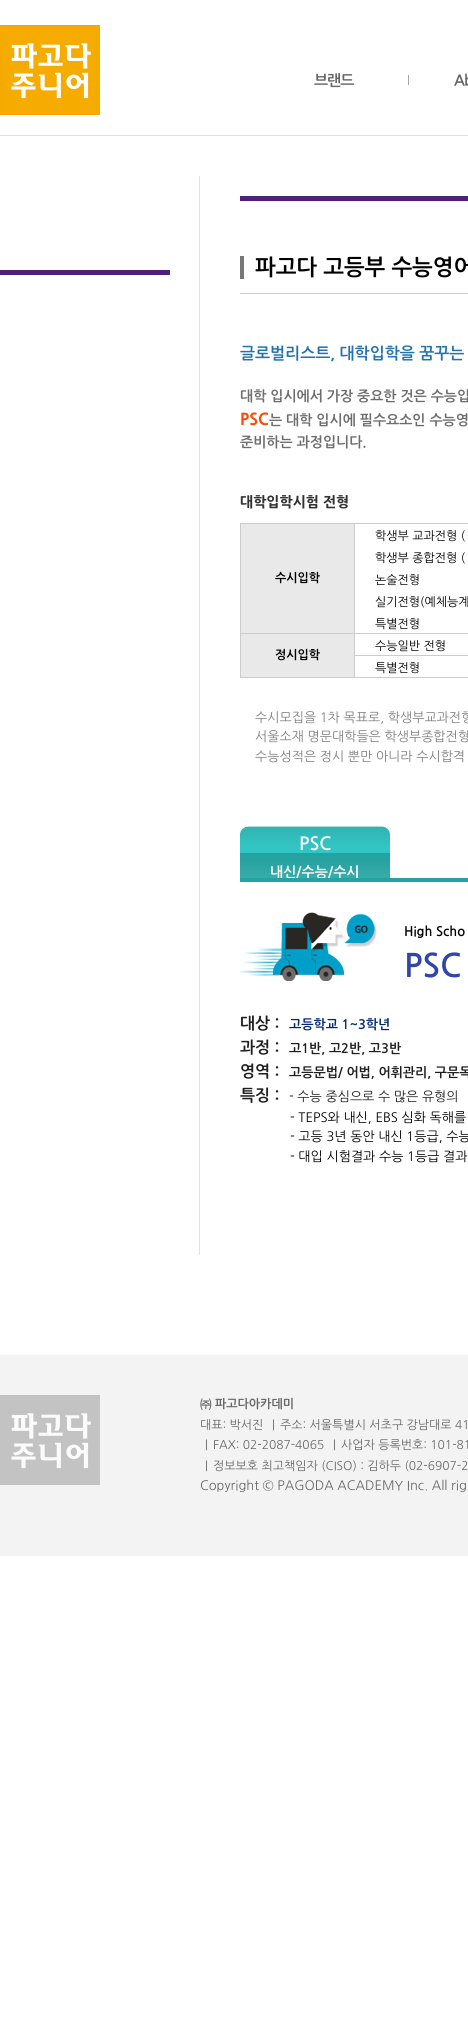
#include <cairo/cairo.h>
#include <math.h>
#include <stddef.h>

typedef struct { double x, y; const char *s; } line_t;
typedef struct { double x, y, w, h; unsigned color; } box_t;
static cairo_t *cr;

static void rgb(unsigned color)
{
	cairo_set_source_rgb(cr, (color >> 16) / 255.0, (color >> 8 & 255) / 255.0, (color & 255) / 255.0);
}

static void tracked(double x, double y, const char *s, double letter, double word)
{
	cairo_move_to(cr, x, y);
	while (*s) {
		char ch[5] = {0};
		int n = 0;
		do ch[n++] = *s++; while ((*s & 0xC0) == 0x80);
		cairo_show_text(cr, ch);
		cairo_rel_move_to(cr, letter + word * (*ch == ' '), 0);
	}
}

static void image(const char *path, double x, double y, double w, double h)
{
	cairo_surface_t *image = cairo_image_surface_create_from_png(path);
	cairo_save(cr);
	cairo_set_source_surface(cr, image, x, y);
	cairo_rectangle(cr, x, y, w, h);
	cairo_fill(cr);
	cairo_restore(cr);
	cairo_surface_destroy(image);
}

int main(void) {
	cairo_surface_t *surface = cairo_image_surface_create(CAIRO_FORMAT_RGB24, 468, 2030);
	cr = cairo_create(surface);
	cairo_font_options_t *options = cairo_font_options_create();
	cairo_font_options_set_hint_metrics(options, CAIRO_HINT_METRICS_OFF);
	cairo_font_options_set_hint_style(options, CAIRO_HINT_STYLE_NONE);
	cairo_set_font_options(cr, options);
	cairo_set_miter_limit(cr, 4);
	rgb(0xffffff);
	cairo_paint(cr);
	image("img/1.png", 0, 25, 100, 90);
	{
		static const box_t items[] = {
			{408, 75, 1, 10, 0x9ea3a7},
			{0, 135, 468, 1, 0xe1e1e1},
			{0, 270, 170, 5, 0x4d217a},
			{199, 176, 1, 1079, 0xe1e1e1},
			{240, 196, 228, 5, 0x4d217a},
			{240, 256, 4, 23, 0x777777},
			{240, 293, 228, 1, 0xcccccc},
			{240, 523, 228, 1, 0xcccccc},
			{240, 677, 228, 1, 0xcccccc},
			{240, 523, 1, 155, 0xcccccc},
			{354, 633, 114, 1, 0xcccccc},
			{354, 655, 114, 1, 0xcccccc},
			{354, 655, 1, 23, 0xcccccc},
			{354, 633, 1, 23, 0xcccccc},
			{240, 633, 115, 1, 0xcccccc},
			{354, 611, 1, 23, 0xcccccc},
			{354, 611, 1, 1, 0xffffff},
			{354, 589, 1, 23, 0xcccccc},
			{354, 589, 1, 1, 0xffffff},
			{354, 567, 1, 23, 0xcccccc},
			{354, 567, 1, 1, 0xffffff},
			{354, 545, 1, 23, 0xcccccc},
			{354, 545, 1, 1, 0xffffff},
			{354, 523, 1, 23, 0xcccccc},
			{241, 524, 113, 109, 0xe9e9e9},
			{241, 634, 113, 43, 0xe9e9e9},
		};
		for (size_t i = 0; i < sizeof items / sizeof *items; i++) {
			rgb(items[i].color);
			cairo_rectangle(cr, items[i].x, items[i].y, items[i].w, items[i].h);
			cairo_fill(cr);
		}
	}
	image("img/2.png", 240, 826, 150, 52);
	image("img/3.png", 240, 912, 136, 69);
	rgb(0xf3f3f3);
	cairo_rectangle(cr, 0, 1355, 468, 201);
	cairo_fill(cr);
	image("img/4.png", 0, 1395, 100, 90);
	cairo_select_font_face(cr, "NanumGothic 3", CAIRO_FONT_SLANT_NORMAL, CAIRO_FONT_WEIGHT_BOLD);
	cairo_set_font_size(cr, 15);
	rgb(0x666666);
	tracked(314, 85, "브랜드", -1, 0);
	tracked(454, 85, "Ab", -1, 0);
	cairo_select_font_face(cr, "NanumGothic", CAIRO_FONT_SLANT_NORMAL, CAIRO_FONT_WEIGHT_BOLD);
	cairo_set_font_size(cr, 22);
	rgb(0x000000);
	cairo_move_to(cr, 255, 275);
	cairo_show_text(cr, "파고다 고등부 수능영어");
	cairo_set_font_size(cr, 16);
	rgb(0x2473ab);
	cairo_move_to(cr, 240, 359);
	cairo_show_text(cr, "글로벌리스트, 대학입학을 꿈꾸는");
	cairo_set_font_size(cr, 14);
	rgb(0x6d6d6d);
	cairo_move_to(cr, 240, 401);
	cairo_show_text(cr, "대학 입시에서 가장 중요한 것은 수능입");
	cairo_select_font_face(cr, "NanumGothic ExtraBold", CAIRO_FONT_SLANT_NORMAL, CAIRO_FONT_WEIGHT_NORMAL);
	cairo_set_font_size(cr, 16);
	rgb(0xff4800);
	cairo_move_to(cr, 240, 425);
	cairo_show_text(cr, "PSC");
	cairo_select_font_face(cr, "NanumGothic", CAIRO_FONT_SLANT_NORMAL, CAIRO_FONT_WEIGHT_BOLD);
	cairo_set_font_size(cr, 14);
	rgb(0x6d6d6d);
	cairo_move_to(cr, 269, 425);
	cairo_show_text(cr, "는 대학 입시에 필수요소인 수능영");
	cairo_move_to(cr, 240, 447);
	cairo_show_text(cr, "준비하는 과정입니다.");
	cairo_select_font_face(cr, "NanumGothic ExtraBold", CAIRO_FONT_SLANT_NORMAL, CAIRO_FONT_WEIGHT_NORMAL);
	rgb(0x333333);
	cairo_move_to(cr, 240, 507);
	cairo_show_text(cr, "대학입학시험 전형");
	cairo_select_font_face(cr, "NanumGothic", CAIRO_FONT_SLANT_NORMAL, CAIRO_FONT_WEIGHT_NORMAL);
	cairo_set_font_size(cr, 12);
	rgb(0x000000);
	cairo_move_to(cr, 375, 540);
	cairo_show_text(cr, "학생부 교과전형 (");
	cairo_select_font_face(cr, "NanumGothic", CAIRO_FONT_SLANT_NORMAL, CAIRO_FONT_WEIGHT_BOLD);
	cairo_move_to(cr, 275, 582);
	cairo_show_text(cr, "수시입학");
	cairo_select_font_face(cr, "NanumGothic", CAIRO_FONT_SLANT_NORMAL, CAIRO_FONT_WEIGHT_NORMAL);
	{
		static const line_t items[] = {
			{375, 562, "학생부 종합전형 ("},
			{375, 584, "논술전형"},
			{375, 606, "실기전형(예체능계"},
			{375, 628, "특별전형"},
			{375, 650, "수능일반 전형"},
		};
		for (size_t i = 0; i < sizeof items / sizeof *items; i++) {
			cairo_move_to(cr, items[i].x, items[i].y);
			cairo_show_text(cr, items[i].s);
		}
	}
	cairo_select_font_face(cr, "NanumGothic", CAIRO_FONT_SLANT_NORMAL, CAIRO_FONT_WEIGHT_BOLD);
	cairo_move_to(cr, 275, 659);
	cairo_show_text(cr, "정시입학");
	cairo_select_font_face(cr, "NanumGothic", CAIRO_FONT_SLANT_NORMAL, CAIRO_FONT_WEIGHT_NORMAL);
	cairo_move_to(cr, 375, 672);
	cairo_show_text(cr, "특별전형");
	cairo_set_font_size(cr, 13);
	rgb(0x7f7f7f);
	{
		static const line_t items[] = {
			{255, 722, "수시모집을 1차 목표로, 학생부교과전형"},
			{255, 741, "서울소재 명문대학들은 학생부종합전형"},
			{255, 761, "수능성적은 정시 뿐만 아니라 수시합격"},
		};
		for (size_t i = 0; i < sizeof items / sizeof *items; i++) {
			cairo_move_to(cr, items[i].x, items[i].y);
			cairo_show_text(cr, items[i].s);
		}
	}
	cairo_select_font_face(cr, "NanumGothic", CAIRO_FONT_SLANT_NORMAL, CAIRO_FONT_WEIGHT_BOLD);
	cairo_set_font_size(cr, 18);
	rgb(0xffffff);
	cairo_move_to(cr, 299, 850);
	cairo_show_text(cr, "PSC");
	cairo_set_font_size(cr, 14);
	cairo_move_to(cr, 270, 877);
	cairo_show_text(cr, "내신/수능/수시");
	rgb(0x25a3a1);
	cairo_rectangle(cr, 240, 878, 228, 4);
	cairo_fill(cr);
	cairo_set_font_size(cr, 13);
	rgb(0x000000);
	cairo_move_to(cr, 404, 936);
	cairo_show_text(cr, "High Scho");
	cairo_set_font_size(cr, 32);
	rgb(0x3145ad);
	cairo_move_to(cr, 404, 977);
	cairo_show_text(cr, "PSC");
	cairo_set_font_size(cr, 16);
	rgb(0x1f1f1f);
	cairo_move_to(cr, 240, 1029);
	cairo_show_text(cr, "대상 :");
	cairo_set_font_size(cr, 13);
	rgb(0x002872);
	cairo_move_to(cr, 289, 1029);
	cairo_show_text(cr, "고등학교 1~3학년");
	cairo_set_font_size(cr, 16);
	rgb(0x1f1f1f);
	cairo_move_to(cr, 240, 1053);
	cairo_show_text(cr, "과정 :");
	cairo_set_font_size(cr, 13);
	cairo_move_to(cr, 289, 1053);
	cairo_show_text(cr, "고1반, 고2반, 고3반");
	cairo_set_font_size(cr, 16);
	cairo_move_to(cr, 240, 1077);
	cairo_show_text(cr, "영역 :");
	cairo_set_font_size(cr, 13);
	cairo_move_to(cr, 289, 1077);
	cairo_show_text(cr, "고등문법/ 어법, 어휘관리, 구문독");
	cairo_set_font_size(cr, 16);
	cairo_move_to(cr, 240, 1101);
	cairo_show_text(cr, "특징 :");
	cairo_select_font_face(cr, "NanumGothic", CAIRO_FONT_SLANT_NORMAL, CAIRO_FONT_WEIGHT_NORMAL);
	cairo_set_font_size(cr, 13);
	cairo_move_to(cr, 289, 1101);
	cairo_show_text(cr, "- 수능 중심으로 수 많은 유형의");
	rgb(0x000000);
	{
		static const line_t items[] = {
			{290, 1122, "- TEPS와 내신, EBS 심화 독해를"},
			{290, 1141, "- 고등 3년 동안 내신 1등급, 수능"},
			{290, 1161, "- 대입 시험결과 수능 1등급 결과"},
		};
		for (size_t i = 0; i < sizeof items / sizeof *items; i++) {
			cairo_move_to(cr, items[i].x, items[i].y);
			cairo_show_text(cr, items[i].s);
		}
	}
	cairo_select_font_face(cr, "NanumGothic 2", CAIRO_FONT_SLANT_NORMAL, CAIRO_FONT_WEIGHT_BOLD);
	cairo_set_font_size(cr, 12);
	rgb(0x666666);
	cairo_move_to(cr, 200, 1408);
	cairo_show_text(cr, "㈜");
	cairo_select_font_face(cr, "NanumGothic", CAIRO_FONT_SLANT_NORMAL, CAIRO_FONT_WEIGHT_BOLD);
	cairo_move_to(cr, 215, 1408);
	cairo_show_text(cr, "파고다아카데미");
	cairo_select_font_face(cr, "NanumGothic", CAIRO_FONT_SLANT_NORMAL, CAIRO_FONT_WEIGHT_NORMAL);
	{
		static const line_t items[] = {
			{200, 1429, "대표: 박서진"},
			{272, 1429, "|"},
			{280, 1429, "주소: 서울특별시 서초구 강남대로 41"},
			{205, 1449, "|"},
			{213, 1449, "FAX: 02-2087-4065"},
			{333, 1449, "|"},
			{341, 1449, "사업자 등록번호: 101-81"},
			{205, 1470, "|"},
			{213, 1470, "정보보호 최고책임자 (CISO) : 김하두 (02-6907-2"},
		};
		for (size_t i = 0; i < sizeof items / sizeof *items; i++) {
			cairo_move_to(cr, items[i].x, items[i].y);
			cairo_show_text(cr, items[i].s);
		}
	}
	cairo_set_font_size(cr, 13);
	cairo_move_to(cr, 200, 1490);
	cairo_show_text(cr, "Copyright © PAGODA ACADEMY Inc. All rig");
	cairo_surface_write_to_png(surface, "page.png");
	cairo_font_options_destroy(options);
	cairo_destroy(cr);
	cairo_surface_destroy(surface);
	return 0;
}
